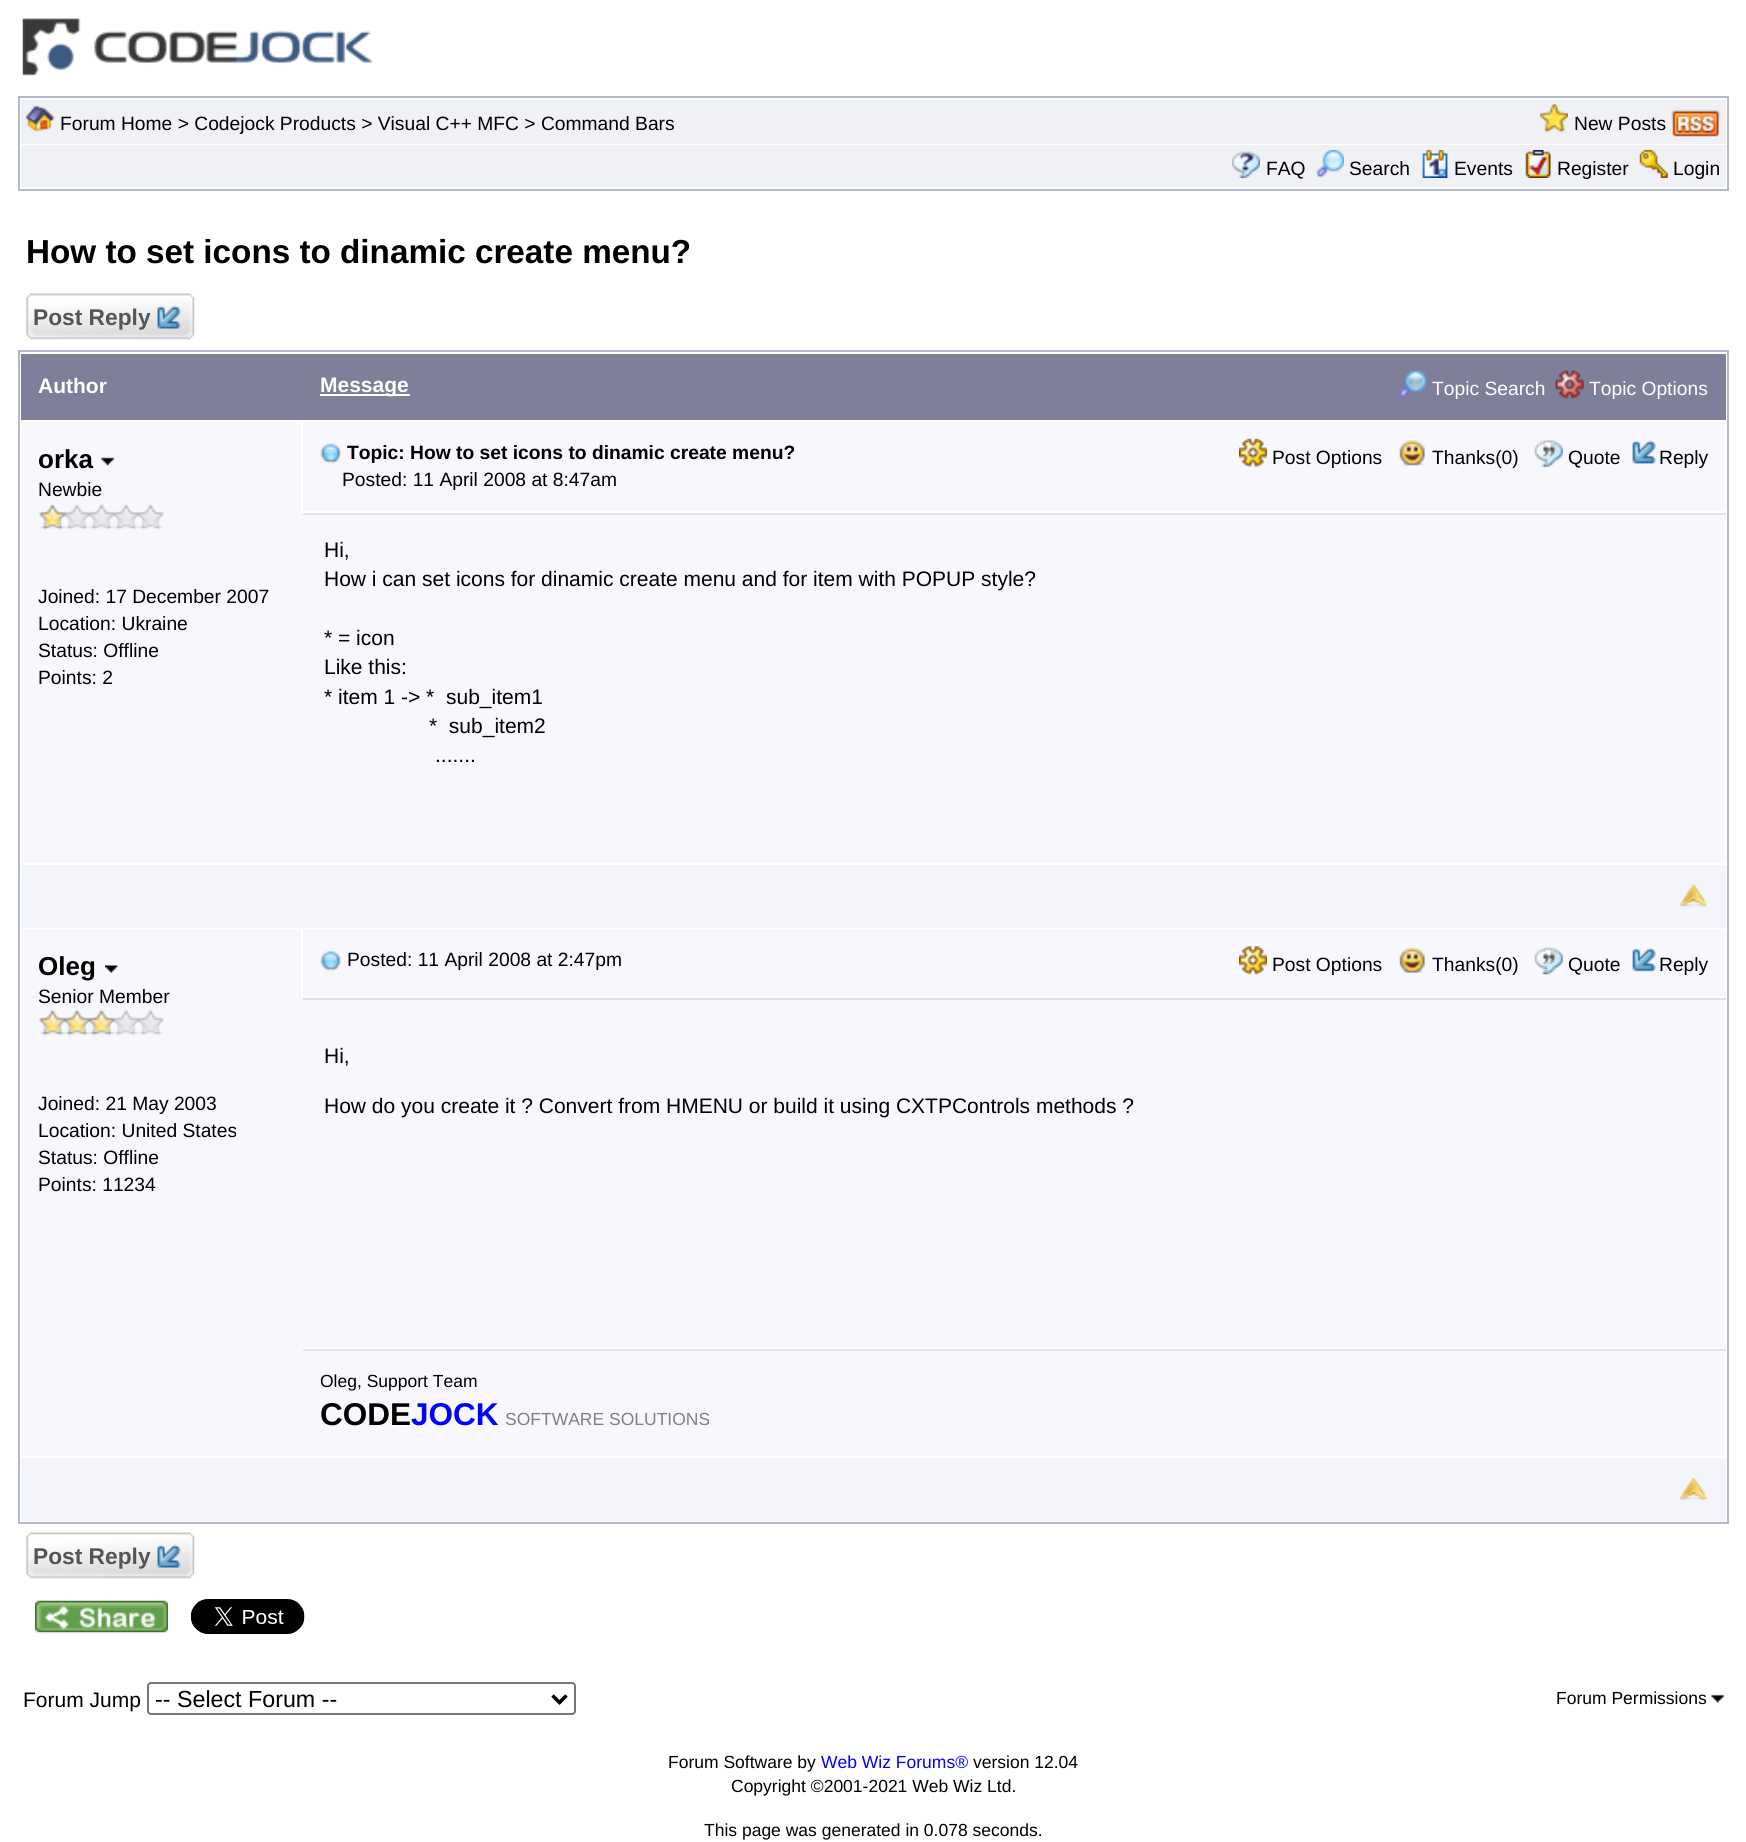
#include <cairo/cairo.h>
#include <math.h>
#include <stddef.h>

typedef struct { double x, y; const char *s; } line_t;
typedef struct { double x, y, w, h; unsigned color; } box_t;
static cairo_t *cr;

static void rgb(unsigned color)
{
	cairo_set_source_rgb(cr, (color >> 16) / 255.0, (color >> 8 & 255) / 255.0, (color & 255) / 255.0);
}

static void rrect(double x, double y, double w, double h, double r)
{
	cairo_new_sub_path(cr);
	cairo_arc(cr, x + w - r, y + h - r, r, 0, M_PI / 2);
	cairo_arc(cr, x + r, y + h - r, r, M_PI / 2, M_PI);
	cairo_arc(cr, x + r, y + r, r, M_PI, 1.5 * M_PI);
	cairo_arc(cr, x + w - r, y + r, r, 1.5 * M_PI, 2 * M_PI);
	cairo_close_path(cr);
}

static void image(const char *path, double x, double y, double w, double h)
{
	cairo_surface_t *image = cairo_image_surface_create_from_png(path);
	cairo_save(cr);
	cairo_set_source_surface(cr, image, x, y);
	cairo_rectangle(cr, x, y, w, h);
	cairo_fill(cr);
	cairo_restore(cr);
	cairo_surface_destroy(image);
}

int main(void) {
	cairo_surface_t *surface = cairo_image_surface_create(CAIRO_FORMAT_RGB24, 1746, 1842);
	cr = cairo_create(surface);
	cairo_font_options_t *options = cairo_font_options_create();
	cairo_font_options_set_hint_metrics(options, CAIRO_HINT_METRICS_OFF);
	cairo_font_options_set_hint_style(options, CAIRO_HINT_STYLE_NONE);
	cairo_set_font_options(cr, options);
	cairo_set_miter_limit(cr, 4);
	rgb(0xffffff);
	cairo_paint(cr);
	image("img/1.png", 22, 18, 351, 58);
	cairo_rectangle(cr, 19, 97, 1709, 93);
	rgb(0xb6b9cb);
	cairo_stroke(cr);
	rgb(0xf0f1f5);
	cairo_rectangle(cr, 21, 100, 1705, 44);
	cairo_fill(cr);
	image("img/2.png", 26, 105, 29, 27);
	image("img/3.png", 1540, 104, 28, 29);
	image("img/4.png", 1671, 109, 50, 29);
	cairo_rectangle(cr, 21, 145, 1705, 42);
	cairo_fill(cr);
	image("img/5.png", 1232, 151, 28, 27);
	image("img/6.png", 1316, 150, 28, 28);
	image("img/7.png", 1422, 150, 26, 28);
	image("img/8.png", 1525, 150, 26, 28);
	image("img/9.png", 1639, 150, 29, 28);
	image("img/10.png", 26, 293, 169, 47);
	image("img/11.png", 157, 305, 24, 24);
	cairo_rectangle(cr, 19, 351, 1709, 1172);
	rgb(0xb6b9cb);
	cairo_stroke(cr);
	rgb(0x7f7f99);
	cairo_rectangle(cr, 21, 354, 1705, 66);
	cairo_fill(cr);
	rgb(0xffffff);
	cairo_rectangle(cr, 320, 394, 90, 2);
	cairo_fill(cr);
	image("img/12.png", 1398, 370, 29, 29);
	image("img/13.png", 1555, 370, 29, 29);
	rgb(0xf8f8fc);
	cairo_rectangle(cr, 21, 422, 280, 91);
	cairo_fill(cr);
	image("img/14.png", 101, 457, 13, 9);
	cairo_rectangle(cr, 21, 513, 1705, 350);
	cairo_fill(cr);
	image("img/15.png", 38, 504, 126, 26);
	cairo_rectangle(cr, 303, 422, 1423, 89);
	cairo_fill(cr);
	image("img/16.png", 320, 443, 22, 21);
	image("img/17.png", 1239, 438, 28, 29);
	image("img/18.png", 1399, 440, 26, 26);
	image("img/19.png", 1534, 440, 29, 27);
	image("img/20.png", 1632, 440, 24, 24);
	rgb(0xe1e3ec);
	cairo_rectangle(cr, 303, 513, 1423, 2);
	cairo_fill(cr);
	rgb(0xf4f4fb);
	cairo_rectangle(cr, 21, 865, 1705, 63);
	cairo_fill(cr);
	image("img/21.png", 1680, 884, 27, 23);
	rgb(0xf8f8fc);
	cairo_rectangle(cr, 21, 929, 280, 420);
	cairo_fill(cr);
	image("img/22.png", 105, 965, 13, 8);
	image("img/23.png", 38, 1009, 126, 27);
	cairo_rectangle(cr, 303, 929, 1423, 67);
	cairo_fill(cr);
	image("img/24.png", 320, 950, 22, 21);
	image("img/25.png", 1239, 946, 28, 29);
	image("img/26.png", 1399, 947, 26, 26);
	image("img/27.png", 1534, 947, 29, 28);
	image("img/28.png", 1632, 947, 24, 25);
	{
		static const box_t items[] = {
			{301, 998, 1425, 350, 0xf8f8fc},
			{303, 998, 1423, 2, 0xe1e3ec},
			{21, 1349, 1705, 107, 0xf8f8fc},
			{303, 1349, 1423, 2, 0xe1e3ec},
			{21, 1458, 1705, 63, 0xf4f4fb},
		};
		for (size_t i = 0; i < sizeof items / sizeof *items; i++) {
			rgb(items[i].color);
			cairo_rectangle(cr, items[i].x, items[i].y, items[i].w, items[i].h);
			cairo_fill(cr);
		}
	}
	image("img/29.png", 1680, 1477, 27, 23);
	image("img/10.png", 26, 1532, 169, 47);
	image("img/11.png", 157, 1544, 24, 24);
	image("img/30.png", 35, 1600, 133, 33);
	image("img/31.png", 190, 1599, 115, 35);
	rrect(148, 1683, 427, 31, 3);
	rgb(0x767676);
	cairo_stroke(cr);
	cairo_new_path(cr);
	cairo_move_to(cr, 552.5, 1695.5);
	cairo_line_to(cr, 559.5, 1702.5);
	cairo_line_to(cr, 566.5, 1695.5);
	rgb(0x000000);
	cairo_set_line_width(cr, 3.5);
	cairo_stroke(cr);
	image("img/32.png", 1711, 1694, 13, 9);
	cairo_select_font_face(cr, "Liberation Sans", CAIRO_FONT_SLANT_NORMAL, CAIRO_FONT_WEIGHT_NORMAL);
	cairo_set_font_size(cr, 19.25);
	{
		static const line_t items[] = {
			{60, 130, "Forum Home > Codejock Products > Visual C++ MFC > Command Bars"},
			{1574, 130, "New Posts"},
			{1266, 175, "FAQ"},
			{1349, 175, "Search"},
			{1454, 175, "Events"},
			{1557, 175, "Register"},
			{1673, 175, "Login"},
		};
		for (size_t i = 0; i < sizeof items / sizeof *items; i++) {
			cairo_move_to(cr, items[i].x, items[i].y);
			cairo_show_text(cr, items[i].s);
		}
	}
	cairo_select_font_face(cr, "Liberation Sans", CAIRO_FONT_SLANT_NORMAL, CAIRO_FONT_WEIGHT_BOLD);
	cairo_set_font_size(cr, 33.25);
	cairo_move_to(cr, 26, 263);
	cairo_show_text(cr, "How to set icons to dinamic create menu?");
	cairo_set_font_size(cr, 22.75);
	rgb(0x555555);
	cairo_move_to(cr, 33, 325);
	cairo_show_text(cr, "Post Reply");
	cairo_set_font_size(cr, 21);
	rgb(0xffffff);
	cairo_move_to(cr, 38, 393);
	cairo_show_text(cr, "Author");
	cairo_move_to(cr, 320, 392);
	cairo_show_text(cr, "Message");
	cairo_select_font_face(cr, "Liberation Sans", CAIRO_FONT_SLANT_NORMAL, CAIRO_FONT_WEIGHT_NORMAL);
	cairo_set_font_size(cr, 19.25);
	cairo_move_to(cr, 1432, 395);
	cairo_show_text(cr, "Topic Search");
	cairo_move_to(cr, 1589, 395);
	cairo_show_text(cr, "Topic Options");
	cairo_select_font_face(cr, "Liberation Sans", CAIRO_FONT_SLANT_NORMAL, CAIRO_FONT_WEIGHT_BOLD);
	cairo_set_font_size(cr, 26);
	rgb(0x000000);
	cairo_move_to(cr, 38, 468);
	cairo_show_text(cr, "orka");
	cairo_select_font_face(cr, "Liberation Sans", CAIRO_FONT_SLANT_NORMAL, CAIRO_FONT_WEIGHT_NORMAL);
	cairo_set_font_size(cr, 19.25);
	{
		static const line_t items[] = {
			{38, 496, "Newbie"},
			{38, 603, "Joined: 17 December 2007"},
			{38, 630, "Location: Ukraine"},
			{38, 657, "Status: Offline"},
			{38, 684, "Points: 2"},
		};
		for (size_t i = 0; i < sizeof items / sizeof *items; i++) {
			cairo_move_to(cr, items[i].x, items[i].y);
			cairo_show_text(cr, items[i].s);
		}
	}
	cairo_select_font_face(cr, "Liberation Sans", CAIRO_FONT_SLANT_NORMAL, CAIRO_FONT_WEIGHT_BOLD);
	cairo_move_to(cr, 347, 459);
	cairo_show_text(cr, "Topic: How to set icons to dinamic create menu?");
	cairo_select_font_face(cr, "Liberation Sans", CAIRO_FONT_SLANT_NORMAL, CAIRO_FONT_WEIGHT_NORMAL);
	{
		static const line_t items[] = {
			{1272, 464, "Post Options"},
			{1432, 464, "Thanks(0)"},
			{1568, 464, "Quote"},
			{1659, 464, "Reply"},
			{342, 486, "Posted: 11 April 2008 at 8:47am"},
		};
		for (size_t i = 0; i < sizeof items / sizeof *items; i++) {
			cairo_move_to(cr, items[i].x, items[i].y);
			cairo_show_text(cr, items[i].s);
		}
	}
	cairo_set_font_size(cr, 21);
	{
		static const line_t items[] = {
			{324, 557, "Hi,"},
			{324, 586, "How i can set icons for dinamic create menu and for item with POPUP style?"},
			{324, 645, "* = icon"},
			{324, 674, "Like this:"},
			{324, 704, "* item 1 -> *  sub_item1"},
			{429, 733, "*  sub_item2"},
			{435, 762, "......."},
		};
		for (size_t i = 0; i < sizeof items / sizeof *items; i++) {
			cairo_move_to(cr, items[i].x, items[i].y);
			cairo_show_text(cr, items[i].s);
		}
	}
	cairo_select_font_face(cr, "Liberation Sans", CAIRO_FONT_SLANT_NORMAL, CAIRO_FONT_WEIGHT_BOLD);
	cairo_set_font_size(cr, 26);
	cairo_move_to(cr, 38, 975);
	cairo_show_text(cr, "Oleg");
	cairo_select_font_face(cr, "Liberation Sans", CAIRO_FONT_SLANT_NORMAL, CAIRO_FONT_WEIGHT_NORMAL);
	cairo_set_font_size(cr, 19.25);
	{
		static const line_t items[] = {
			{38, 1003, "Senior Member"},
			{38, 1110, "Joined: 21 May 2003"},
			{38, 1137, "Location: United States"},
			{38, 1164, "Status: Offline"},
			{38, 1191, "Points: 11234"},
			{347, 966, "Posted: 11 April 2008 at 2:47pm"},
			{1272, 971, "Post Options"},
			{1432, 971, "Thanks(0)"},
			{1568, 971, "Quote"},
			{1659, 971, "Reply"},
		};
		for (size_t i = 0; i < sizeof items / sizeof *items; i++) {
			cairo_move_to(cr, items[i].x, items[i].y);
			cairo_show_text(cr, items[i].s);
		}
	}
	cairo_set_font_size(cr, 21);
	cairo_move_to(cr, 324, 1063);
	cairo_show_text(cr, "Hi,");
	cairo_move_to(cr, 324, 1113);
	cairo_show_text(cr, "How do you create it ? Convert from HMENU or build it using CXTPControls methods ?");
	cairo_set_font_size(cr, 17.5);
	cairo_move_to(cr, 320, 1387);
	cairo_show_text(cr, "Oleg, Support Team");
	cairo_select_font_face(cr, "Liberation Sans", CAIRO_FONT_SLANT_NORMAL, CAIRO_FONT_WEIGHT_BOLD);
	cairo_set_font_size(cr, 31.5);
	cairo_move_to(cr, 320, 1425);
	cairo_show_text(cr, "CODE");
	rgb(0x0000ff);
	cairo_move_to(cr, 411, 1425);
	cairo_show_text(cr, "JOCK");
	cairo_select_font_face(cr, "Liberation Sans", CAIRO_FONT_SLANT_NORMAL, CAIRO_FONT_WEIGHT_NORMAL);
	cairo_set_font_size(cr, 17.5);
	rgb(0x808080);
	cairo_move_to(cr, 505, 1425);
	cairo_show_text(cr, "SOFTWARE SOLUTIONS");
	cairo_select_font_face(cr, "Liberation Sans", CAIRO_FONT_SLANT_NORMAL, CAIRO_FONT_WEIGHT_BOLD);
	cairo_set_font_size(cr, 22.75);
	rgb(0x555555);
	cairo_move_to(cr, 33, 1564);
	cairo_show_text(cr, "Post Reply");
	cairo_select_font_face(cr, "Liberation Sans", CAIRO_FONT_SLANT_NORMAL, CAIRO_FONT_WEIGHT_NORMAL);
	cairo_set_font_size(cr, 21);
	rgb(0x000000);
	cairo_move_to(cr, 23, 1707);
	cairo_show_text(cr, "Forum Jump");
	cairo_set_font_size(cr, 23.25);
	cairo_move_to(cr, 155, 1707);
	cairo_show_text(cr, "-- Select Forum --");
	cairo_set_font_size(cr, 17.5);
	cairo_move_to(cr, 1556, 1704);
	cairo_show_text(cr, "Forum Permissions");
	cairo_move_to(cr, 668, 1768);
	cairo_show_text(cr, "Forum Software by");
	rgb(0x0000ff);
	cairo_move_to(cr, 821, 1768);
	cairo_show_text(cr, "Web Wiz Forums®");
	rgb(0x000000);
	{
		static const line_t items[] = {
			{973, 1768, "version 12.04"},
			{731, 1792, "Copyright ©2001-2021 Web Wiz Ltd."},
			{704, 1836, "This page was generated in 0.078 seconds."},
		};
		for (size_t i = 0; i < sizeof items / sizeof *items; i++) {
			cairo_move_to(cr, items[i].x, items[i].y);
			cairo_show_text(cr, items[i].s);
		}
	}
	cairo_surface_write_to_png(surface, "page.png");
	cairo_font_options_destroy(options);
	cairo_destroy(cr);
	cairo_surface_destroy(surface);
	return 0;
}
